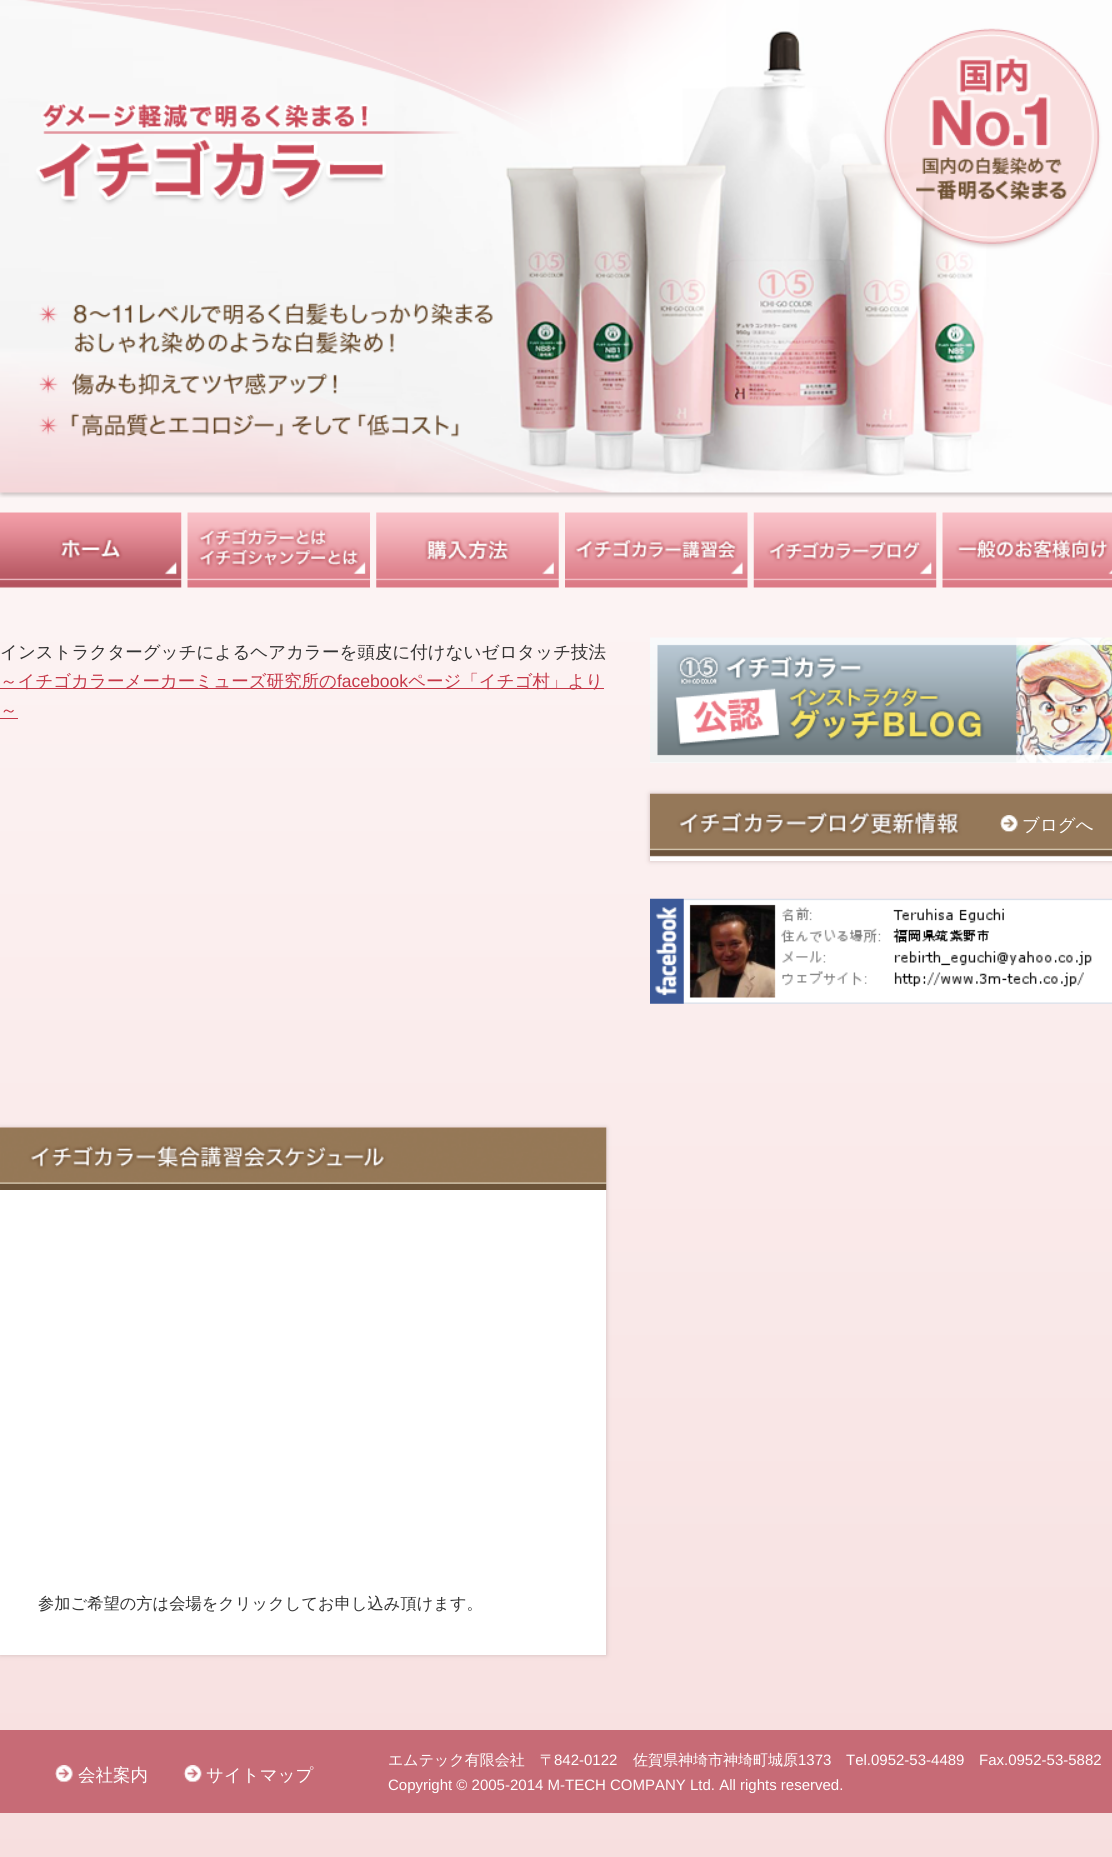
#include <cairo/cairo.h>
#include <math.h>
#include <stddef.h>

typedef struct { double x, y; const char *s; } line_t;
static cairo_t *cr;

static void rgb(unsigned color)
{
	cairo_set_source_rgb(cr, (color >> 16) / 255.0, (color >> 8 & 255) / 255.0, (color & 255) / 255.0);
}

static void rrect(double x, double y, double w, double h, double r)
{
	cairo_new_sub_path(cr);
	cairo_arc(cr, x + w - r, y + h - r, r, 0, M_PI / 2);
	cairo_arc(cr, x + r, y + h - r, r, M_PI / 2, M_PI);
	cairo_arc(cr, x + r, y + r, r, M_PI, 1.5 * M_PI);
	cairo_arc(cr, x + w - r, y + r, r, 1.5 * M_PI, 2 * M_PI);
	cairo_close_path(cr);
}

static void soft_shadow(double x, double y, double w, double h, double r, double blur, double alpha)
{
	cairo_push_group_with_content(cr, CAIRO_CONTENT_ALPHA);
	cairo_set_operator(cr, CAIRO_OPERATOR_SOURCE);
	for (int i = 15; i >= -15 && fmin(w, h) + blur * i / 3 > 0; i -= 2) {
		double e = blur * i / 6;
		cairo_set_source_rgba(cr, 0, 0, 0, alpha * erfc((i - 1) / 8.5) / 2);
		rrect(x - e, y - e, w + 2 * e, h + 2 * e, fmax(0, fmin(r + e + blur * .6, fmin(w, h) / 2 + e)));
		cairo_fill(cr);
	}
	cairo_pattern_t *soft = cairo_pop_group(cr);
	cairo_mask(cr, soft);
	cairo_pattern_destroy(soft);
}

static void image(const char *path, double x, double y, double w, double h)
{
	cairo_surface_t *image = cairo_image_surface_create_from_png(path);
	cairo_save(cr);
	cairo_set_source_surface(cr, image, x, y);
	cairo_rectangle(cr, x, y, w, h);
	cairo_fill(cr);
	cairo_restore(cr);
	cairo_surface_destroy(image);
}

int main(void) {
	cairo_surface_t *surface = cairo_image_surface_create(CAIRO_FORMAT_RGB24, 1112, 1857);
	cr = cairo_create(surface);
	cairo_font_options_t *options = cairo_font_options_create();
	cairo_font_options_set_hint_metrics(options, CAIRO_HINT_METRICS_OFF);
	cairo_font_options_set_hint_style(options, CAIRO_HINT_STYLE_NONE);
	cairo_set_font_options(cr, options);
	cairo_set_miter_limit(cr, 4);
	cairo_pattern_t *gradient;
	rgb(0xffffff);
	cairo_paint(cr);
	gradient = cairo_pattern_create_linear(556, -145, 556, 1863);
	cairo_pattern_add_color_stop_rgba(gradient, 0, 1, 1, 1, 1);
	cairo_pattern_add_color_stop_rgba(gradient, 1, 0.969, 0.875, 0.875, 1);
	cairo_set_source(cr, gradient);
	cairo_pattern_destroy(gradient);
	cairo_rectangle(cr, 0, 12, 1112, 1845);
	cairo_fill(cr);
	image("img/1.png", 0, 0, 1112, 498);
	image("img/2.png", 0, 512, 182, 76);
	image("img/3.png", 187, 512, 183, 76);
	image("img/4.png", 376, 512, 183, 76);
	image("img/5.png", 565, 512, 183, 76);
	image("img/6.png", 753, 512, 184, 76);
	image("img/7.png", 942, 512, 170, 76);
	rgb(0xc53848);
	cairo_rectangle(cr, 0, 688, 604, 1);
	cairo_fill(cr);
	cairo_rectangle(cr, 0, 718, 18, 1);
	cairo_fill(cr);
	rgb(0xcfbdbd);
	soft_shadow(0, 1128, 606, 527, 0, 2.5, 1);
	rgb(0xffffff);
	cairo_rectangle(cr, 0, 1190, 606, 465);
	cairo_fill(cr);
	image("img/8.png", 0, 1127, 606, 1);
	image("img/9.png", 0, 1127, 607, 63);
	cairo_rectangle(cr, 650, 762, 462, 1);
	cairo_fill(cr);
	image("img/10.png", 650, 637, 462, 126);
	rgb(0xcfbdbd);
	soft_shadow(650, 794, 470, 67, 0, 2.5, 1);
	rgb(0xffffff);
	cairo_rectangle(cr, 650, 854, 462, 7);
	cairo_fill(cr);
	image("img/11.png", 650, 793, 462, 64);
	image("img/12.png", 1000, 815, 18, 17);
	image("img/13.png", 650, 898, 462, 106);
	rgb(0xc76b76);
	cairo_rectangle(cr, 0, 1730, 1112, 83);
	cairo_fill(cr);
	image("img/14.png", 55, 1765, 18, 18);
	image("img/15.png", 183, 1765, 19, 18);
	cairo_select_font_face(cr, "WenQuanYi Zen Hei Medium", CAIRO_FONT_SLANT_NORMAL, CAIRO_FONT_WEIGHT_NORMAL);
	cairo_set_font_size(cr, 17.5);
	rgb(0x333333);
	cairo_move_to(cr, 0, 658);
	cairo_show_text(cr, "インストラクターグッチによるヘアカラーを頭皮に付けないゼロタッチ技法");
	rgb(0xc53848);
	cairo_move_to(cr, 0, 687);
	cairo_show_text(cr, "～イチゴカラーメーカーミューズ研究所の");
	cairo_select_font_face(cr, "Liberation Sans", CAIRO_FONT_SLANT_NORMAL, CAIRO_FONT_WEIGHT_NORMAL);
	cairo_move_to(cr, 337, 687);
	cairo_show_text(cr, "facebook");
	cairo_select_font_face(cr, "WenQuanYi Zen Hei Medium", CAIRO_FONT_SLANT_NORMAL, CAIRO_FONT_WEIGHT_NORMAL);
	cairo_move_to(cr, 408, 687);
	cairo_show_text(cr, "ページ「イチゴ村」より");
	cairo_move_to(cr, 0, 716);
	cairo_show_text(cr, "～");
	cairo_set_font_size(cr, 16.25);
	rgb(0x333333);
	cairo_move_to(cr, 38, 1609);
	cairo_show_text(cr, "参加ご希望の方は会場をクリックしてお申し込み頂けます。");
	cairo_set_font_size(cr, 17.5);
	rgb(0xffffff);
	{
		static const line_t items[] = {
			{1022, 831, "ブログへ"},
			{78, 1781, "会社案内"},
			{206, 1781, "サイトマップ"},
		};
		for (size_t i = 0; i < sizeof items / sizeof *items; i++) {
			cairo_move_to(cr, items[i].x, items[i].y);
			cairo_show_text(cr, items[i].s);
		}
	}
	cairo_set_font_size(cr, 15);
	cairo_move_to(cr, 388, 1765);
	cairo_show_text(cr, "エムテック有限会社　〒");
	cairo_select_font_face(cr, "Liberation Sans", CAIRO_FONT_SLANT_NORMAL, CAIRO_FONT_WEIGHT_NORMAL);
	cairo_move_to(cr, 554, 1765);
	cairo_show_text(cr, "842-0122");
	cairo_select_font_face(cr, "WenQuanYi Zen Hei Medium", CAIRO_FONT_SLANT_NORMAL, CAIRO_FONT_WEIGHT_NORMAL);
	cairo_move_to(cr, 633, 1765);
	cairo_show_text(cr, "佐賀県神埼市神埼町城原");
	cairo_select_font_face(cr, "Liberation Sans", CAIRO_FONT_SLANT_NORMAL, CAIRO_FONT_WEIGHT_NORMAL);
	{
		static const line_t items[] = {
			{798, 1765, "1373"},
			{846, 1765, "Tel.0952-53-4489"},
			{979, 1765, "Fax.0952-53-5882"},
			{388, 1790, "Copyright © 2005-2014 M-TECH COMPANY Ltd. All rights reserved."},
		};
		for (size_t i = 0; i < sizeof items / sizeof *items; i++) {
			cairo_move_to(cr, items[i].x, items[i].y);
			cairo_show_text(cr, items[i].s);
		}
	}
	cairo_surface_write_to_png(surface, "page.png");
	cairo_font_options_destroy(options);
	cairo_destroy(cr);
	cairo_surface_destroy(surface);
	return 0;
}
